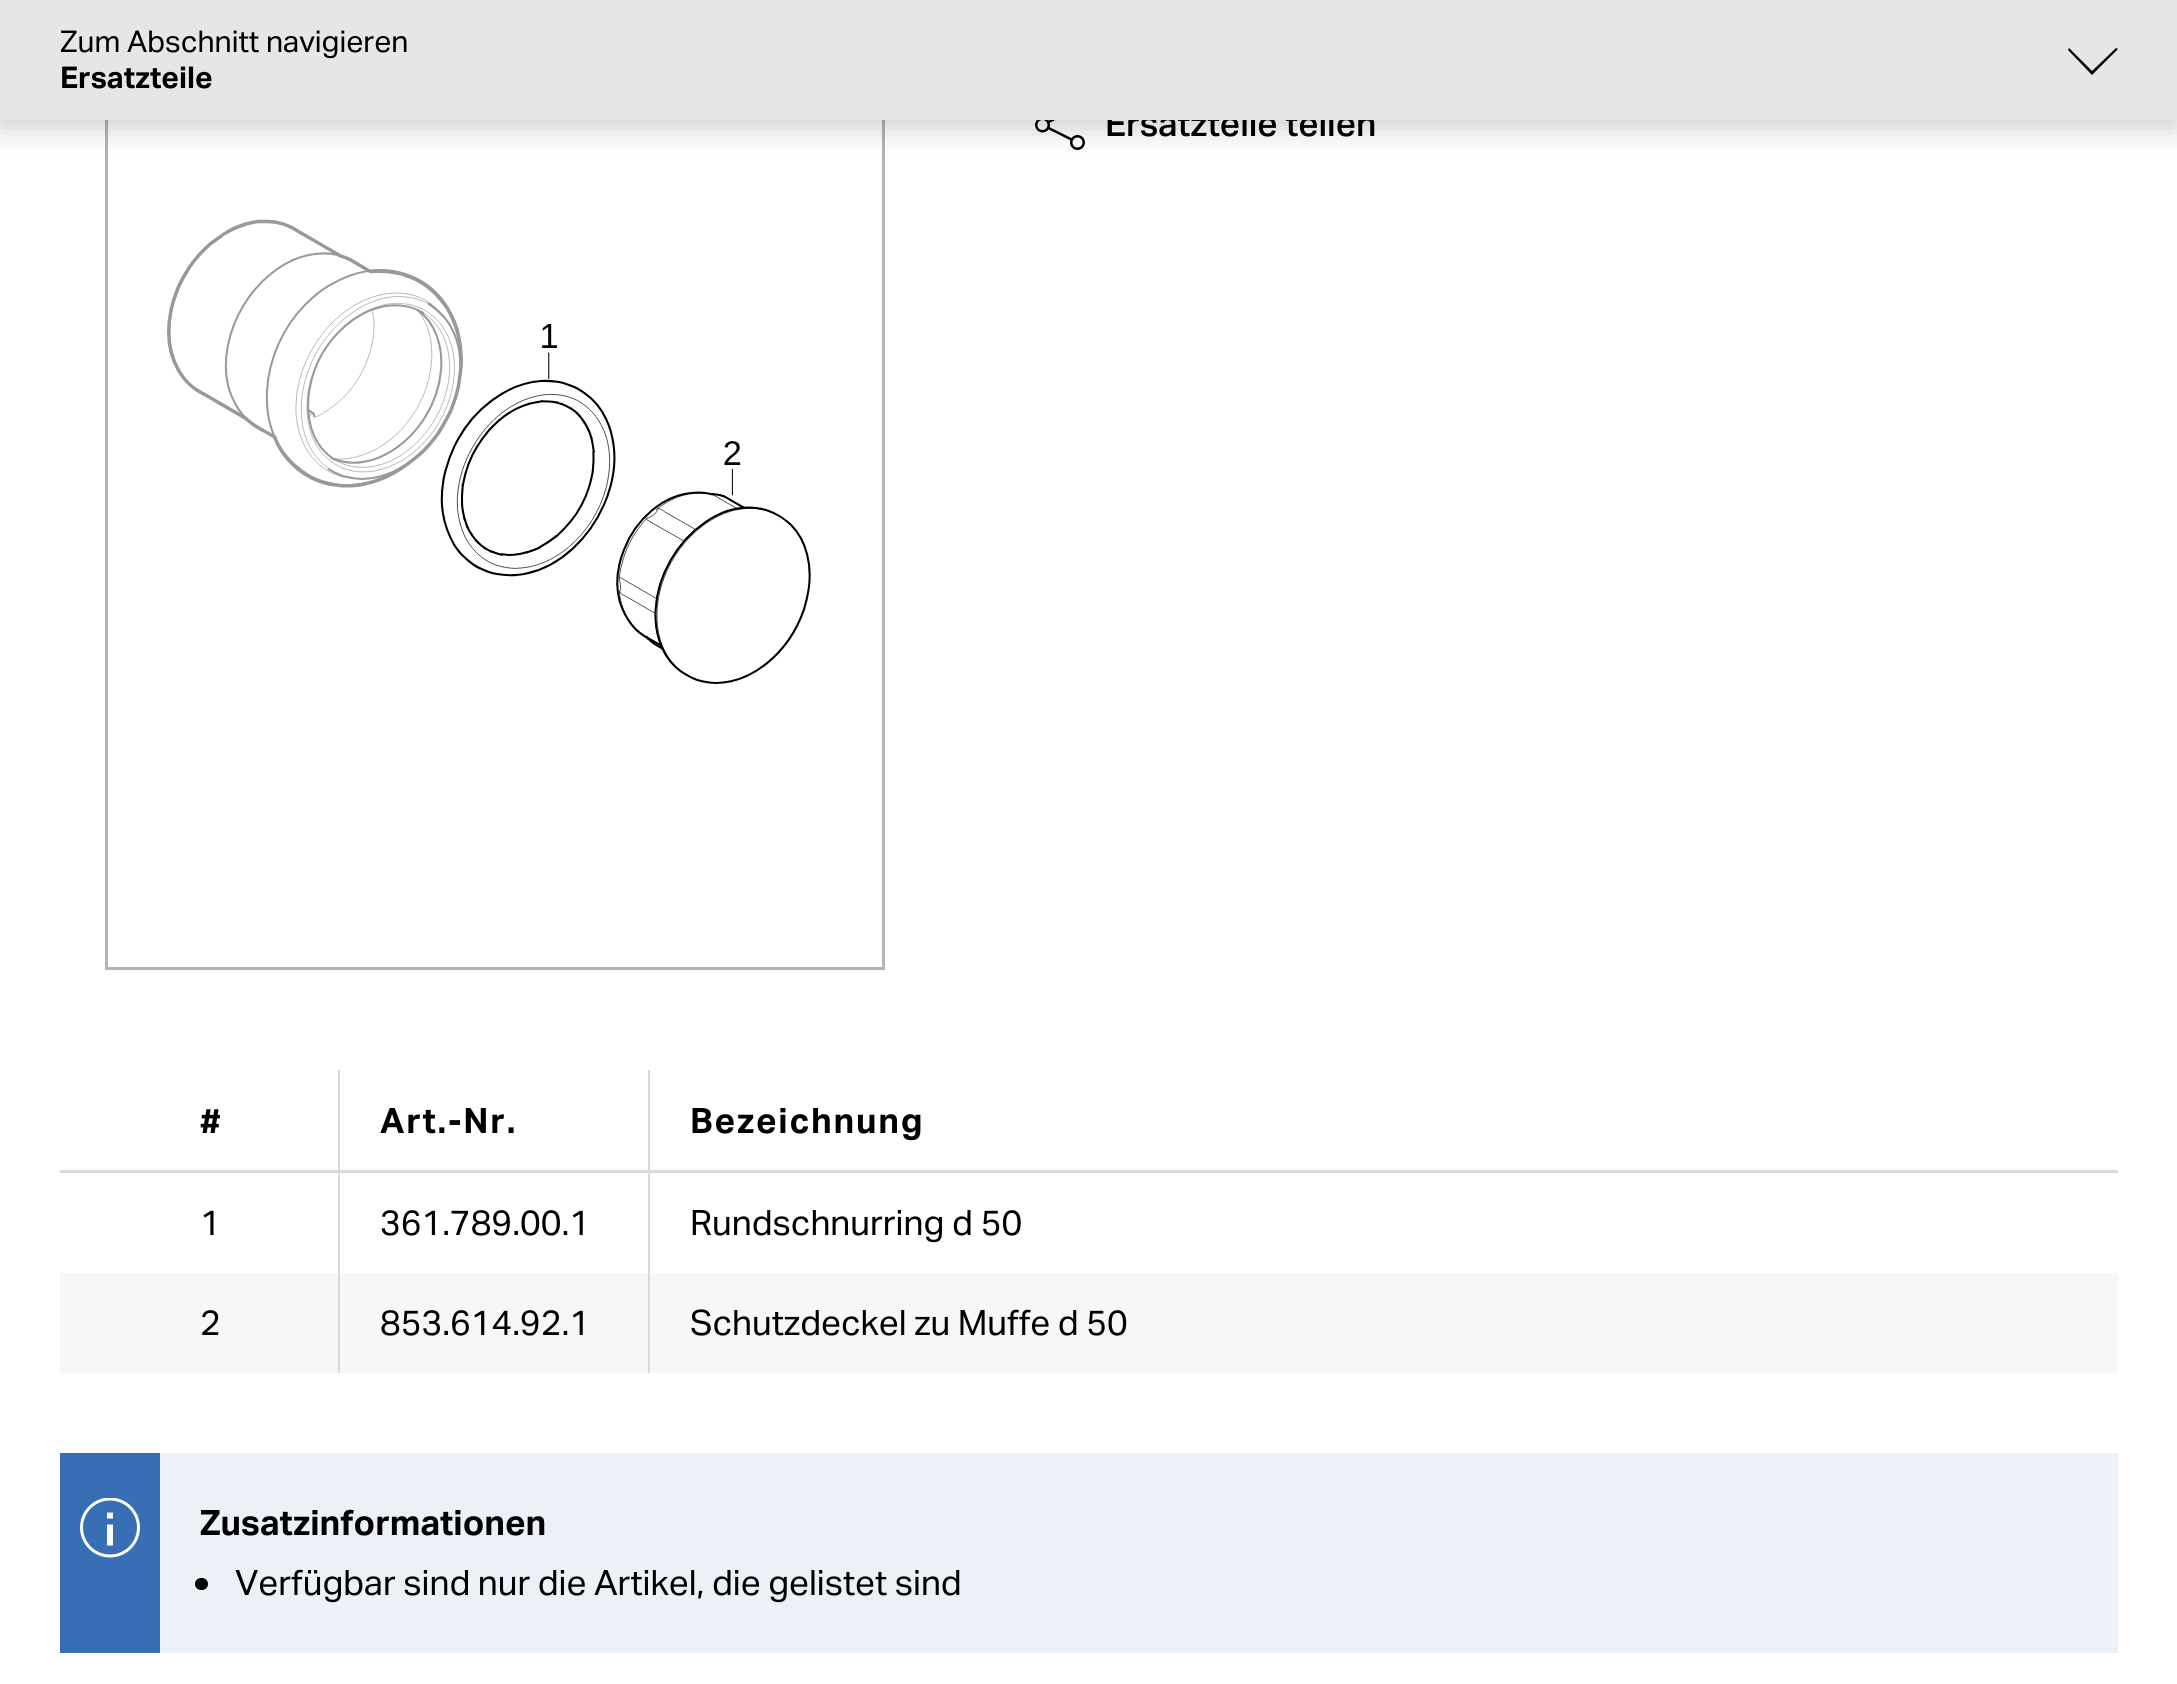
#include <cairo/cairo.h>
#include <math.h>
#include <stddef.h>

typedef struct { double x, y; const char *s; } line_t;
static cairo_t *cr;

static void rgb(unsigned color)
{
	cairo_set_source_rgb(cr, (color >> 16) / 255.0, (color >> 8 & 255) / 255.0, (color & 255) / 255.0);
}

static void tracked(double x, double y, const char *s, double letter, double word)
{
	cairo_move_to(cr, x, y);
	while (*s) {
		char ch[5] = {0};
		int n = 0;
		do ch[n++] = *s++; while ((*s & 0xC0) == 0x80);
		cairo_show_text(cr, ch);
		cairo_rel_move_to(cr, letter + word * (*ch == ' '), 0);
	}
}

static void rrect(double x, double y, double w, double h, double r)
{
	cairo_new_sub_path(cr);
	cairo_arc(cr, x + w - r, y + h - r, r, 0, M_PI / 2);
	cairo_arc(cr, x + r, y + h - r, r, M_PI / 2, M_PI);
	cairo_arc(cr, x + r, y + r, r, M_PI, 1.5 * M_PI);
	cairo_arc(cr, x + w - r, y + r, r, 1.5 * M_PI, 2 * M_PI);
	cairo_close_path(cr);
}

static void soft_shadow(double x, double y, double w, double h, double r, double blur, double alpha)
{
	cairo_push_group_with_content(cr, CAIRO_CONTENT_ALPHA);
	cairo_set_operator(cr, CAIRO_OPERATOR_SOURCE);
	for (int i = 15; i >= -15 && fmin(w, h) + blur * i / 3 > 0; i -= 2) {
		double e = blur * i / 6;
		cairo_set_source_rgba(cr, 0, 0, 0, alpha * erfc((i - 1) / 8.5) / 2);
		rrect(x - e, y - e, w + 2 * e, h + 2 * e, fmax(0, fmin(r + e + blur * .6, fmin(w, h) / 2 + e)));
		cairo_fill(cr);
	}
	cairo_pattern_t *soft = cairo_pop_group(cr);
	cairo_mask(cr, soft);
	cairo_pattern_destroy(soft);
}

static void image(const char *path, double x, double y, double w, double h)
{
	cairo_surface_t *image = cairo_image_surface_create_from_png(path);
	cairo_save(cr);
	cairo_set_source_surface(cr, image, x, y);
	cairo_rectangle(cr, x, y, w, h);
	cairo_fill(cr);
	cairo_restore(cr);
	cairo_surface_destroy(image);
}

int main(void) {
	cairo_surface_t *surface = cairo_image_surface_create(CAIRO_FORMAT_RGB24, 2177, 1684);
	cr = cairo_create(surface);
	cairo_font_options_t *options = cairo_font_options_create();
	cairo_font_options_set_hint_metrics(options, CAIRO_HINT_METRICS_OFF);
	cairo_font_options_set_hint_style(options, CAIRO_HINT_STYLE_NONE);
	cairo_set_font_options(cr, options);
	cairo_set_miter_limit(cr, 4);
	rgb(0xffffff);
	cairo_paint(cr);
	cairo_rectangle(cr, 106.5, -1.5, 777, 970);
	rgb(0xb4b4b4);
	cairo_set_line_width(cr, 3);
	cairo_stroke(cr);
	image("img/2.png", 1035, 120, 50, 30);
	rgb(0x000000);
	soft_shadow(0, 8, 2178, 120, 0, 15, 0.2);
	image("img/1.png", 167, 219, 644, 465);
	rgb(0xd9d9d9);
	cairo_rectangle(cr, 60, 1170, 2058, 3);
	cairo_fill(cr);
	cairo_save(cr);
	cairo_rectangle(cr, 60, 1070, 280, 100);
	cairo_clip(cr);
	cairo_set_fill_rule(cr, CAIRO_FILL_RULE_EVEN_ODD);
	cairo_new_path(cr);
	cairo_move_to(cr, -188, 822);
	cairo_line_to(cr, 588, 822);
	cairo_line_to(cr, 588, 1420);
	cairo_line_to(cr, -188, 1420);
	cairo_close_path(cr);
	cairo_move_to(cr, 55, 1068);
	cairo_line_to(cr, 335, 1068);
	cairo_curve_to(cr, 336, 1068, 338, 1069, 338, 1070);
	cairo_line_to(cr, 338, 1172);
	cairo_curve_to(cr, 338, 1174, 336, 1175, 335, 1175);
	cairo_line_to(cr, 55, 1175);
	cairo_curve_to(cr, 54, 1175, 52, 1174, 52, 1172);
	cairo_line_to(cr, 52, 1070);
	cairo_curve_to(cr, 52, 1069, 54, 1068, 55, 1068);
	cairo_close_path(cr);
	cairo_fill(cr);
	cairo_restore(cr);
	cairo_save(cr);
	cairo_rectangle(cr, 340, 1070, 310, 100);
	cairo_clip(cr);
	cairo_set_fill_rule(cr, CAIRO_FILL_RULE_EVEN_ODD);
	cairo_new_path(cr);
	cairo_move_to(cr, 92, 822);
	cairo_line_to(cr, 898, 822);
	cairo_line_to(cr, 898, 1420);
	cairo_line_to(cr, 92, 1420);
	cairo_close_path(cr);
	cairo_move_to(cr, 335, 1068);
	cairo_line_to(cr, 645, 1068);
	cairo_curve_to(cr, 646, 1068, 648, 1069, 648, 1070);
	cairo_line_to(cr, 648, 1172);
	cairo_curve_to(cr, 648, 1174, 646, 1175, 645, 1175);
	cairo_line_to(cr, 335, 1175);
	cairo_curve_to(cr, 334, 1175, 332, 1174, 332, 1172);
	cairo_line_to(cr, 332, 1070);
	cairo_curve_to(cr, 332, 1069, 334, 1068, 335, 1068);
	cairo_close_path(cr);
	cairo_fill(cr);
	cairo_restore(cr);
	cairo_save(cr);
	cairo_rectangle(cr, 60, 1173, 280, 100);
	cairo_clip(cr);
	cairo_set_fill_rule(cr, CAIRO_FILL_RULE_EVEN_ODD);
	cairo_new_path(cr);
	cairo_move_to(cr, -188, 925);
	cairo_line_to(cr, 588, 925);
	cairo_line_to(cr, 588, 1520);
	cairo_line_to(cr, -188, 1520);
	cairo_close_path(cr);
	cairo_move_to(cr, 55, 1170);
	cairo_line_to(cr, 335, 1170);
	cairo_curve_to(cr, 336, 1170, 338, 1171, 338, 1172);
	cairo_line_to(cr, 338, 1272);
	cairo_curve_to(cr, 338, 1274, 336, 1275, 335, 1275);
	cairo_line_to(cr, 55, 1275);
	cairo_curve_to(cr, 54, 1275, 52, 1274, 52, 1272);
	cairo_line_to(cr, 52, 1172);
	cairo_curve_to(cr, 52, 1171, 54, 1170, 55, 1170);
	cairo_close_path(cr);
	cairo_fill(cr);
	cairo_restore(cr);
	cairo_save(cr);
	cairo_rectangle(cr, 340, 1173, 310, 100);
	cairo_clip(cr);
	cairo_set_fill_rule(cr, CAIRO_FILL_RULE_EVEN_ODD);
	cairo_new_path(cr);
	cairo_move_to(cr, 92, 925);
	cairo_line_to(cr, 898, 925);
	cairo_line_to(cr, 898, 1520);
	cairo_line_to(cr, 92, 1520);
	cairo_close_path(cr);
	cairo_move_to(cr, 335, 1170);
	cairo_line_to(cr, 645, 1170);
	cairo_curve_to(cr, 646, 1170, 648, 1171, 648, 1172);
	cairo_line_to(cr, 648, 1272);
	cairo_curve_to(cr, 648, 1274, 646, 1275, 645, 1275);
	cairo_line_to(cr, 335, 1275);
	cairo_curve_to(cr, 334, 1275, 332, 1274, 332, 1272);
	cairo_line_to(cr, 332, 1172);
	cairo_curve_to(cr, 332, 1171, 334, 1170, 335, 1170);
	cairo_close_path(cr);
	cairo_fill(cr);
	cairo_restore(cr);
	rgb(0xf7f7f7);
	cairo_rectangle(cr, 60, 1273, 2058, 100);
	cairo_fill(cr);
	cairo_save(cr);
	cairo_rectangle(cr, 60, 1273, 280, 100);
	cairo_clip(cr);
	rgb(0xd9d9d9);
	cairo_set_fill_rule(cr, CAIRO_FILL_RULE_EVEN_ODD);
	cairo_new_path(cr);
	cairo_move_to(cr, -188, 1025);
	cairo_line_to(cr, 588, 1025);
	cairo_line_to(cr, 588, 1620);
	cairo_line_to(cr, -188, 1620);
	cairo_close_path(cr);
	cairo_move_to(cr, 55, 1270);
	cairo_line_to(cr, 335, 1270);
	cairo_curve_to(cr, 336, 1270, 338, 1271, 338, 1272);
	cairo_line_to(cr, 338, 1372);
	cairo_curve_to(cr, 338, 1374, 336, 1375, 335, 1375);
	cairo_line_to(cr, 55, 1375);
	cairo_curve_to(cr, 54, 1375, 52, 1374, 52, 1372);
	cairo_line_to(cr, 52, 1272);
	cairo_curve_to(cr, 52, 1271, 54, 1270, 55, 1270);
	cairo_close_path(cr);
	cairo_fill(cr);
	cairo_restore(cr);
	cairo_save(cr);
	cairo_rectangle(cr, 340, 1273, 310, 100);
	cairo_clip(cr);
	rgb(0xd9d9d9);
	cairo_set_fill_rule(cr, CAIRO_FILL_RULE_EVEN_ODD);
	cairo_new_path(cr);
	cairo_move_to(cr, 92, 1025);
	cairo_line_to(cr, 898, 1025);
	cairo_line_to(cr, 898, 1620);
	cairo_line_to(cr, 92, 1620);
	cairo_close_path(cr);
	cairo_move_to(cr, 335, 1270);
	cairo_line_to(cr, 645, 1270);
	cairo_curve_to(cr, 646, 1270, 648, 1271, 648, 1272);
	cairo_line_to(cr, 648, 1372);
	cairo_curve_to(cr, 648, 1374, 646, 1375, 645, 1375);
	cairo_line_to(cr, 335, 1375);
	cairo_curve_to(cr, 334, 1375, 332, 1374, 332, 1372);
	cairo_line_to(cr, 332, 1272);
	cairo_curve_to(cr, 332, 1271, 334, 1270, 335, 1270);
	cairo_close_path(cr);
	cairo_fill(cr);
	cairo_restore(cr);
	rgb(0x376eb4);
	cairo_rectangle(cr, 60, 1453, 100, 200);
	cairo_fill(cr);
	image("img/3.png", 80, 1498, 60, 60);
	rgb(0xecf1f8);
	cairo_rectangle(cr, 160, 1453, 1958, 200);
	cairo_fill(cr);
	rgb(0x000000);
	rrect(195, 1578, 13, 12, 6);
	cairo_fill(cr);
	cairo_select_font_face(cr, "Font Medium", CAIRO_FONT_SLANT_NORMAL, CAIRO_FONT_WEIGHT_NORMAL);
	cairo_set_font_size(cr, 35);
	cairo_move_to(cr, 1105, 136);
	cairo_show_text(cr, "Ersatzteile teilen");
	rgb(0xe6e6e6);
	cairo_rectangle(cr, 0, 0, 2177, 120);
	cairo_fill(cr);
	rgb(0x000000);
	cairo_set_fill_rule(cr, CAIRO_FILL_RULE_EVEN_ODD);
	cairo_new_path(cr);
	cairo_move_to(cr, 2069, 48);
	cairo_line_to(cr, 2068, 50);
	cairo_line_to(cr, 2092, 75);
	cairo_line_to(cr, 2118, 49);
	cairo_line_to(cr, 2116, 48);
	cairo_line_to(cr, 2092, 71);
	cairo_close_path(cr);
	cairo_fill(cr);
	cairo_select_font_face(cr, "Font", CAIRO_FONT_SLANT_NORMAL, CAIRO_FONT_WEIGHT_BOLD);
	cairo_set_font_size(cr, 30);
	cairo_move_to(cr, 60, 88);
	cairo_show_text(cr, "Ersatzteile");
	cairo_select_font_face(cr, "Font", CAIRO_FONT_SLANT_NORMAL, CAIRO_FONT_WEIGHT_NORMAL);
	cairo_move_to(cr, 60, 52);
	cairo_show_text(cr, "Zum Abschnitt navigieren");
	cairo_select_font_face(cr, "Font", CAIRO_FONT_SLANT_NORMAL, CAIRO_FONT_WEIGHT_BOLD);
	cairo_set_font_size(cr, 35);
	{
		static const line_t items[] = {
			{200, 1133, "#"},
			{380, 1133, "Art.-Nr."},
			{690, 1133, "Bezeichnung"},
		};
		for (size_t i = 0; i < sizeof items / sizeof *items; i++) {
			tracked(items[i].x, items[i].y, items[i].s, 1.75, 0);
		}
	}
	cairo_select_font_face(cr, "Font", CAIRO_FONT_SLANT_NORMAL, CAIRO_FONT_WEIGHT_NORMAL);
	{
		static const line_t items[] = {
			{200, 1235, "1"},
			{380, 1235, "361.789.00.1"},
			{690, 1235, "Rundschnurring d 50"},
			{200, 1335, "2"},
			{380, 1335, "853.614.92.1"},
		};
		for (size_t i = 0; i < sizeof items / sizeof *items; i++) {
			cairo_move_to(cr, items[i].x, items[i].y);
			cairo_show_text(cr, items[i].s);
		}
	}
	tracked(690, 1335, "Schutzdeckel zu Muffe d 50", 0, -0.25);
	cairo_select_font_face(cr, "Font", CAIRO_FONT_SLANT_NORMAL, CAIRO_FONT_WEIGHT_BOLD);
	cairo_move_to(cr, 200, 1535);
	cairo_show_text(cr, "Zusatzinformationen");
	cairo_select_font_face(cr, "Font", CAIRO_FONT_SLANT_NORMAL, CAIRO_FONT_WEIGHT_NORMAL);
	tracked(235, 1595, "Verfügbar sind nur die Artikel, die gelistet sind", 0, -0.25);
	cairo_surface_write_to_png(surface, "page.png");
	cairo_font_options_destroy(options);
	cairo_destroy(cr);
	cairo_surface_destroy(surface);
	return 0;
}
